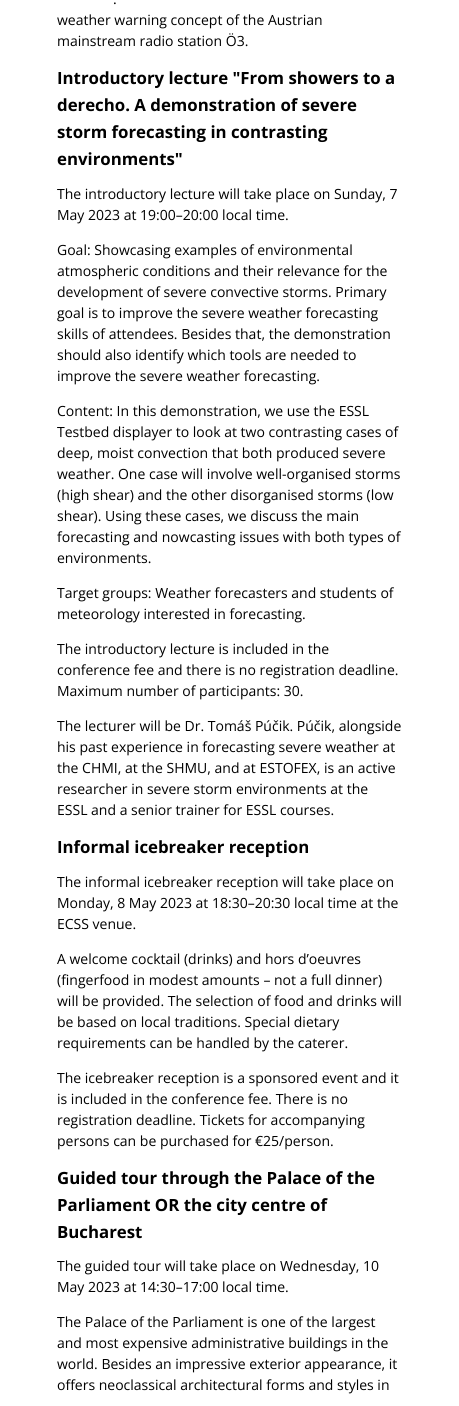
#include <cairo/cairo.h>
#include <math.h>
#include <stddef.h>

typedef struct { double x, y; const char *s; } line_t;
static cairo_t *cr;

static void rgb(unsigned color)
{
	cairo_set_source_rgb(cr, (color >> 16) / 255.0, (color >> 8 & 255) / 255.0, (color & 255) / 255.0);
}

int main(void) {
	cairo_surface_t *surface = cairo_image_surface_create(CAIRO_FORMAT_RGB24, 459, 1406);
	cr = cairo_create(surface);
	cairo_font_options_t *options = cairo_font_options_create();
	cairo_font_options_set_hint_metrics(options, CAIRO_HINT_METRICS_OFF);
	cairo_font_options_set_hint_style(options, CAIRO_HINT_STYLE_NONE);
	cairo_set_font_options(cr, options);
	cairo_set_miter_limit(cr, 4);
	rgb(0xffffff);
	cairo_paint(cr);
	cairo_select_font_face(cr, "Open Sans", CAIRO_FONT_SLANT_NORMAL, CAIRO_FONT_WEIGHT_NORMAL);
	cairo_set_font_size(cr, 14);
	rgb(0x000000);
	{
		static const line_t items[] = {
			{113, 4, "."},
			{57, 25, "weather warning concept of the Austrian"},
			{57, 46, "mainstream radio station Ö3."},
		};
		for (size_t i = 0; i < sizeof items / sizeof *items; i++) {
			cairo_move_to(cr, items[i].x, items[i].y);
			cairo_show_text(cr, items[i].s);
		}
	}
	cairo_select_font_face(cr, "Open Sans", CAIRO_FONT_SLANT_NORMAL, CAIRO_FONT_WEIGHT_BOLD);
	cairo_set_font_size(cr, 16.8);
	{
		static const line_t items[] = {
			{57, 84, "Introductory lecture \"From showers to a"},
			{57, 111, "derecho. A demonstration of severe"},
			{57, 138, "storm forecasting in contrasting"},
			{57, 165, "environments\""},
		};
		for (size_t i = 0; i < sizeof items / sizeof *items; i++) {
			cairo_move_to(cr, items[i].x, items[i].y);
			cairo_show_text(cr, items[i].s);
		}
	}
	cairo_select_font_face(cr, "Open Sans", CAIRO_FONT_SLANT_NORMAL, CAIRO_FONT_WEIGHT_NORMAL);
	cairo_set_font_size(cr, 14);
	{
		static const line_t items[] = {
			{57, 199, "The introductory lecture will take place on Sunday, 7"},
			{57, 220, "May 2023 at 19:00–20:00 local time."},
			{57, 255, "Goal: Showcasing examples of environmental"},
			{57, 276, "atmospheric conditions and their relevance for the"},
			{57, 297, "development of severe convective storms. Primary"},
			{57, 318, "goal is to improve the severe weather forecasting"},
			{57, 339, "skills of attendees. Besides that, the demonstration"},
			{57, 360, "should also identify which tools are needed to"},
			{57, 381, "improve the severe weather forecasting."},
			{57, 416, "Content: In this demonstration, we use the ESSL"},
			{57, 437, "Testbed displayer to look at two contrasting cases of"},
			{57, 458, "deep, moist convection that both produced severe"},
			{57, 479, "weather. One case will involve well-organised storms"},
			{57, 500, "(high shear) and the other disorganised storms (low"},
			{57, 521, "shear). Using these cases, we discuss the main"},
			{57, 542, "forecasting and nowcasting issues with both types of"},
			{57, 563, "environments."},
			{57, 598, "Target groups: Weather forecasters and students of"},
			{57, 619, "meteorology interested in forecasting."},
			{57, 654, "The introductory lecture is included in the"},
			{57, 675, "conference fee and there is no registration deadline."},
			{57, 696, "Maximum number of participants: 30."},
			{57, 731, "The lecturer will be Dr. Tomáš Púčik. Púčik, alongside"},
			{57, 752, "his past experience in forecasting severe weather at"},
			{57, 773, "the CHMI, at the SHMU, and at ESTOFEX, is an active"},
			{57, 794, "researcher in severe storm environments at the"},
			{57, 815, "ESSL and a senior trainer for ESSL courses."},
		};
		for (size_t i = 0; i < sizeof items / sizeof *items; i++) {
			cairo_move_to(cr, items[i].x, items[i].y);
			cairo_show_text(cr, items[i].s);
		}
	}
	cairo_select_font_face(cr, "Open Sans", CAIRO_FONT_SLANT_NORMAL, CAIRO_FONT_WEIGHT_BOLD);
	cairo_set_font_size(cr, 16.8);
	cairo_move_to(cr, 57, 853);
	cairo_show_text(cr, "Informal icebreaker reception");
	cairo_select_font_face(cr, "Open Sans", CAIRO_FONT_SLANT_NORMAL, CAIRO_FONT_WEIGHT_NORMAL);
	cairo_set_font_size(cr, 14);
	{
		static const line_t items[] = {
			{57, 887, "The informal icebreaker reception will take place on"},
			{57, 908, "Monday, 8 May 2023 at 18:30–20:30 local time at the"},
			{57, 929, "ECSS venue."},
			{57, 964, "A welcome cocktail (drinks) and hors d’oeuvres"},
			{57, 985, "(fingerfood in modest amounts – not a full dinner)"},
			{57, 1006, "will be provided. The selection of food and drinks will"},
			{57, 1027, "be based on local traditions. Special dietary"},
			{57, 1048, "requirements can be handled by the caterer."},
			{57, 1083, "The icebreaker reception is a sponsored event and it"},
			{57, 1104, "is included in the conference fee. There is no"},
			{57, 1125, "registration deadline. Tickets for accompanying"},
			{57, 1146, "persons can be purchased for €25/person."},
		};
		for (size_t i = 0; i < sizeof items / sizeof *items; i++) {
			cairo_move_to(cr, items[i].x, items[i].y);
			cairo_show_text(cr, items[i].s);
		}
	}
	cairo_select_font_face(cr, "Open Sans", CAIRO_FONT_SLANT_NORMAL, CAIRO_FONT_WEIGHT_BOLD);
	cairo_set_font_size(cr, 16.8);
	{
		static const line_t items[] = {
			{57, 1184, "Guided tour through the Palace of the"},
			{57, 1211, "Parliament OR the city centre of"},
			{57, 1238, "Bucharest"},
		};
		for (size_t i = 0; i < sizeof items / sizeof *items; i++) {
			cairo_move_to(cr, items[i].x, items[i].y);
			cairo_show_text(cr, items[i].s);
		}
	}
	cairo_select_font_face(cr, "Open Sans", CAIRO_FONT_SLANT_NORMAL, CAIRO_FONT_WEIGHT_NORMAL);
	cairo_set_font_size(cr, 14);
	{
		static const line_t items[] = {
			{57, 1271, "The guided tour will take place on Wednesday, 10"},
			{57, 1292, "May 2023 at 14:30–17:00 local time."},
			{57, 1327, "The Palace of the Parliament is one of the largest"},
			{57, 1348, "and most expensive administrative buildings in the"},
			{57, 1369, "world. Besides an impressive exterior appearance, it"},
			{57, 1390, "offers neoclassical architectural forms and styles in"},
		};
		for (size_t i = 0; i < sizeof items / sizeof *items; i++) {
			cairo_move_to(cr, items[i].x, items[i].y);
			cairo_show_text(cr, items[i].s);
		}
	}
	cairo_surface_write_to_png(surface, "page.png");
	cairo_font_options_destroy(options);
	cairo_destroy(cr);
	cairo_surface_destroy(surface);
	return 0;
}
